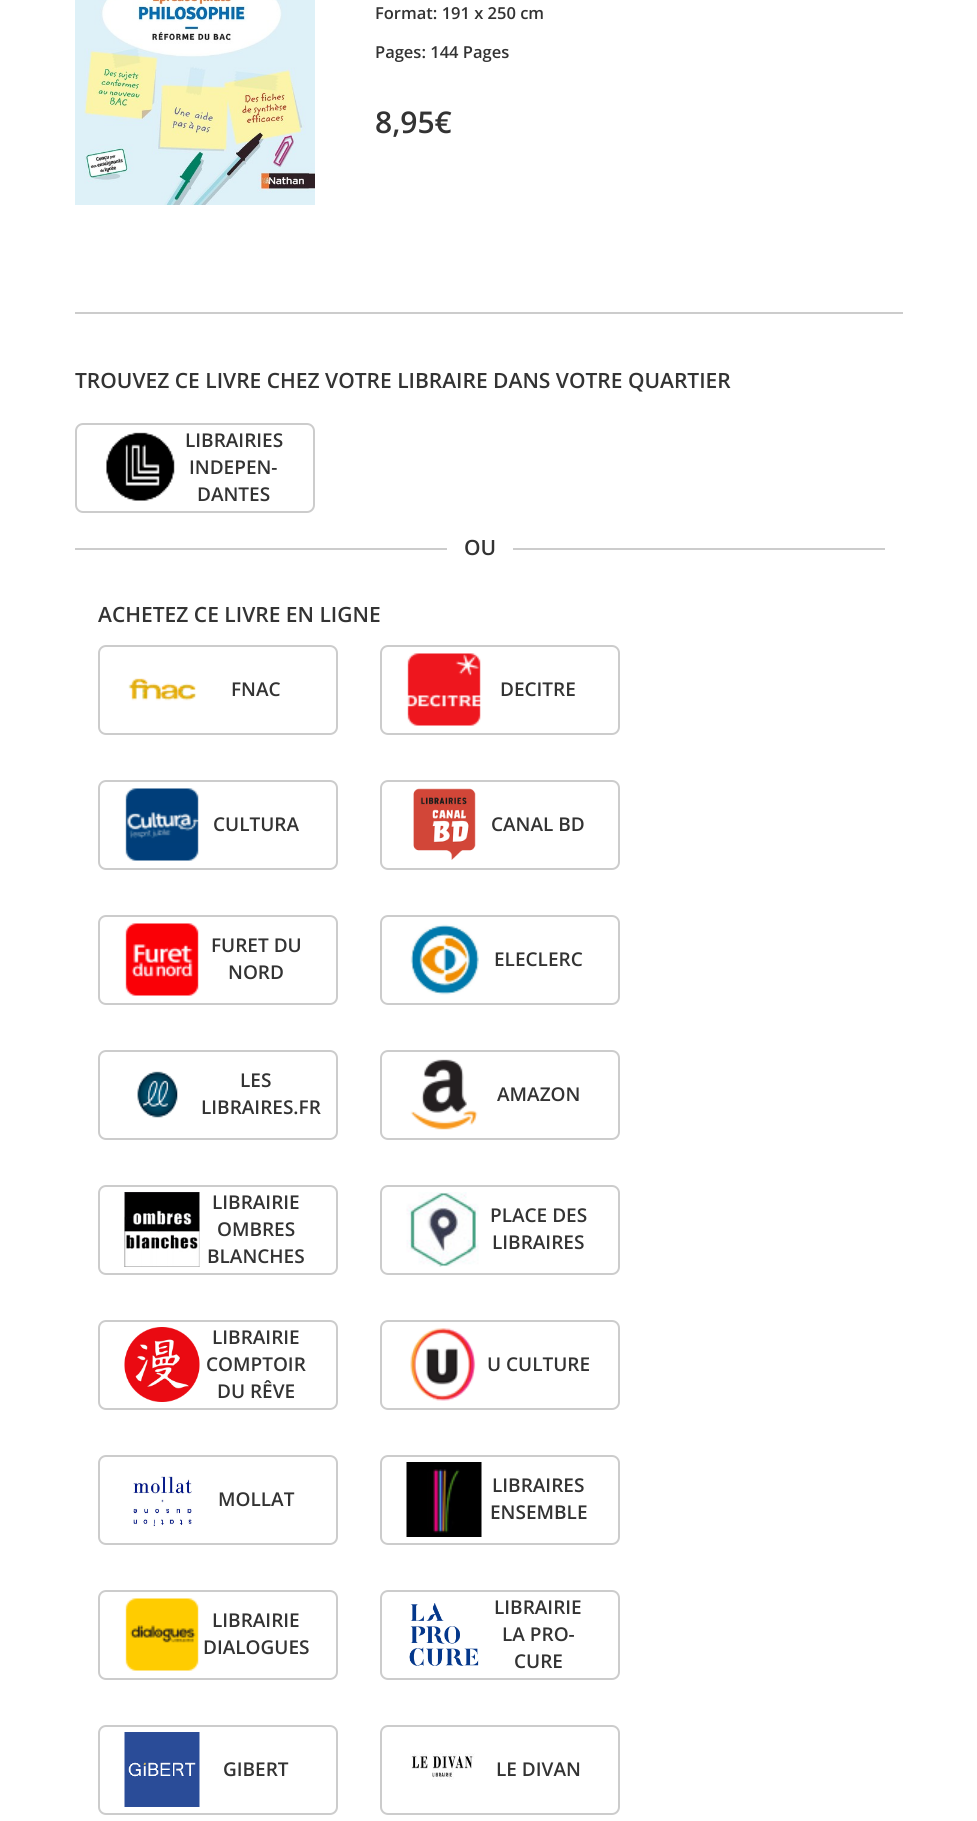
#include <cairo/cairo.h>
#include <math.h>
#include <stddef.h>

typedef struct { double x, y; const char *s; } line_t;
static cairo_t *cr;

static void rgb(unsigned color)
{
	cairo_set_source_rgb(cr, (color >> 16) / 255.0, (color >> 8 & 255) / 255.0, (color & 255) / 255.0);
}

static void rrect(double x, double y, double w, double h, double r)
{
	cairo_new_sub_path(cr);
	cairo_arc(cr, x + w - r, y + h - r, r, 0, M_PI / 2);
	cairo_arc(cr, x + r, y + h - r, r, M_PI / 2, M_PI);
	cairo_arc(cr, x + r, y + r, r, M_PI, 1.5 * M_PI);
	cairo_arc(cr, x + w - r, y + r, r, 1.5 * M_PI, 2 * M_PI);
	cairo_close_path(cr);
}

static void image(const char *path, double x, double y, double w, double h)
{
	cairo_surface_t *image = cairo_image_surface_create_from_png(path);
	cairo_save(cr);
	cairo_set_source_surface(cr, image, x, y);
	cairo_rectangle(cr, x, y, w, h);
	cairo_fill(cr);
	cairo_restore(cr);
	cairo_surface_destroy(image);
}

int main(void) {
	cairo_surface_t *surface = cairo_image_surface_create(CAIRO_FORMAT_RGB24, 977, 1821);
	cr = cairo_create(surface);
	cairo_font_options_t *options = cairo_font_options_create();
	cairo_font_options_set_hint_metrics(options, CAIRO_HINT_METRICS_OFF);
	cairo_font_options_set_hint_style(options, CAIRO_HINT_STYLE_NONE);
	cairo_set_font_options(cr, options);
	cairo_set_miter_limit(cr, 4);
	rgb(0xffffff);
	cairo_paint(cr);
	image("img/1.png", 75, 0, 240, 205);
	rgb(0xcccccc);
	cairo_rectangle(cr, 75, 312, 828, 2);
	cairo_fill(cr);
	rrect(76, 424, 238, 88, 7);
	cairo_stroke(cr);
	image("img/2.png", 106, 432, 69, 69);
	cairo_rectangle(cr, 75, 548, 372, 2);
	cairo_fill(cr);
	cairo_rectangle(cr, 513, 548, 372, 2);
	cairo_fill(cr);
	rrect(99, 646, 238, 88, 7);
	cairo_stroke(cr);
	image("img/3.png", 128, 678, 69, 23);
	rrect(381, 646, 238, 88, 7);
	cairo_stroke(cr);
	image("img/4.png", 407, 653, 74, 73);
	rrect(99, 781, 238, 88, 7);
	cairo_stroke(cr);
	image("img/5.png", 125, 788, 74, 73);
	rrect(381, 781, 238, 88, 7);
	cairo_stroke(cr);
	image("img/6.png", 413, 788, 63, 72);
	rrect(99, 916, 238, 88, 7);
	cairo_stroke(cr);
	image("img/7.png", 125, 923, 74, 73);
	rrect(381, 916, 238, 88, 7);
	cairo_stroke(cr);
	image("img/8.png", 410, 924, 69, 71);
	rrect(99, 1051, 238, 88, 7);
	cairo_stroke(cr);
	image("img/9.png", 137, 1071, 41, 47);
	rrect(381, 1051, 238, 88, 7);
	cairo_stroke(cr);
	image("img/10.png", 410, 1059, 68, 71);
	rrect(99, 1186, 238, 88, 7);
	cairo_stroke(cr);
	image("img/11.png", 124, 1192, 76, 75);
	rrect(381, 1186, 238, 88, 7);
	cairo_stroke(cr);
	image("img/12.png", 406, 1192, 73, 75);
	rrect(99, 1321, 238, 88, 7);
	cairo_stroke(cr);
	image("img/13.png", 124, 1327, 76, 75);
	rrect(381, 1321, 238, 88, 7);
	cairo_stroke(cr);
	image("img/14.png", 410, 1328, 66, 73);
	rrect(99, 1456, 238, 88, 7);
	cairo_stroke(cr);
	image("img/15.png", 133, 1476, 59, 51);
	rrect(381, 1456, 238, 88, 7);
	cairo_stroke(cr);
	image("img/16.png", 406, 1462, 76, 75);
	rrect(99, 1591, 238, 88, 7);
	cairo_stroke(cr);
	image("img/17.png", 125, 1598, 74, 73);
	rrect(381, 1591, 238, 88, 7);
	cairo_stroke(cr);
	image("img/18.png", 409, 1603, 70, 63);
	rrect(99, 1726, 238, 88, 7);
	cairo_stroke(cr);
	image("img/19.png", 124, 1732, 76, 75);
	rrect(381, 1726, 238, 88, 7);
	cairo_stroke(cr);
	image("img/20.png", 410, 1753, 65, 27);
	cairo_select_font_face(cr, "Open Sans SemiBold", CAIRO_FONT_SLANT_NORMAL, CAIRO_FONT_WEIGHT_NORMAL);
	cairo_set_font_size(cr, 16.5);
	rgb(0x333333);
	cairo_move_to(cr, 375, 19);
	cairo_show_text(cr, "Format: 191 x 250 cm");
	cairo_move_to(cr, 375, 58);
	cairo_show_text(cr, "Pages: 144 Pages");
	cairo_set_font_size(cr, 30);
	cairo_move_to(cr, 375, 133);
	cairo_show_text(cr, "8,95€");
	cairo_set_font_size(cr, 21);
	cairo_move_to(cr, 75, 388);
	cairo_show_text(cr, "TROUVEZ CE LIVRE CHEZ VOTRE LIBRAIRE DANS VOTRE QUARTIER");
	cairo_set_font_size(cr, 19);
	{
		static const line_t items[] = {
			{185, 447, "LIBRAIRIES"},
			{189, 474, "INDEPEN-"},
			{197, 501, "DANTES"},
		};
		for (size_t i = 0; i < sizeof items / sizeof *items; i++) {
			cairo_move_to(cr, items[i].x, items[i].y);
			cairo_show_text(cr, items[i].s);
		}
	}
	cairo_set_font_size(cr, 21);
	cairo_move_to(cr, 464, 555);
	cairo_show_text(cr, "OU");
	cairo_move_to(cr, 98, 622);
	cairo_show_text(cr, "ACHETEZ CE LIVRE EN LIGNE");
	cairo_set_font_size(cr, 19);
	{
		static const line_t items[] = {
			{231, 696, "FNAC"},
			{500, 696, "DECITRE"},
			{213, 831, "CULTURA"},
			{491, 831, "CANAL BD"},
			{211, 952, "FURET DU"},
			{228, 979, "NORD"},
			{494, 966, "ELECLERC"},
			{240, 1087, "LES"},
			{201, 1114, "LIBRAIRES.FR"},
			{497, 1101, "AMAZON"},
			{212, 1209, "LIBRAIRIE"},
			{217, 1236, "OMBRES"},
			{207, 1263, "BLANCHES"},
			{490, 1222, "PLACE DES"},
			{492, 1249, "LIBRAIRES"},
			{212, 1344, "LIBRAIRIE"},
			{206, 1371, "COMPTOIR"},
			{217, 1398, "DU RÊVE"},
			{487, 1371, "U CULTURE"},
			{218, 1506, "MOLLAT"},
			{492, 1492, "LIBRAIRES"},
			{490, 1519, "ENSEMBLE"},
			{212, 1627, "LIBRAIRIE"},
			{203, 1654, "DIALOGUES"},
			{494, 1614, "LIBRAIRIE"},
			{502, 1641, "LA PRO-"},
			{514, 1668, "CURE"},
			{223, 1776, "GIBERT"},
			{496, 1776, "LE DIVAN"},
		};
		for (size_t i = 0; i < sizeof items / sizeof *items; i++) {
			cairo_move_to(cr, items[i].x, items[i].y);
			cairo_show_text(cr, items[i].s);
		}
	}
	cairo_surface_write_to_png(surface, "page.png");
	cairo_font_options_destroy(options);
	cairo_destroy(cr);
	cairo_surface_destroy(surface);
	return 0;
}
